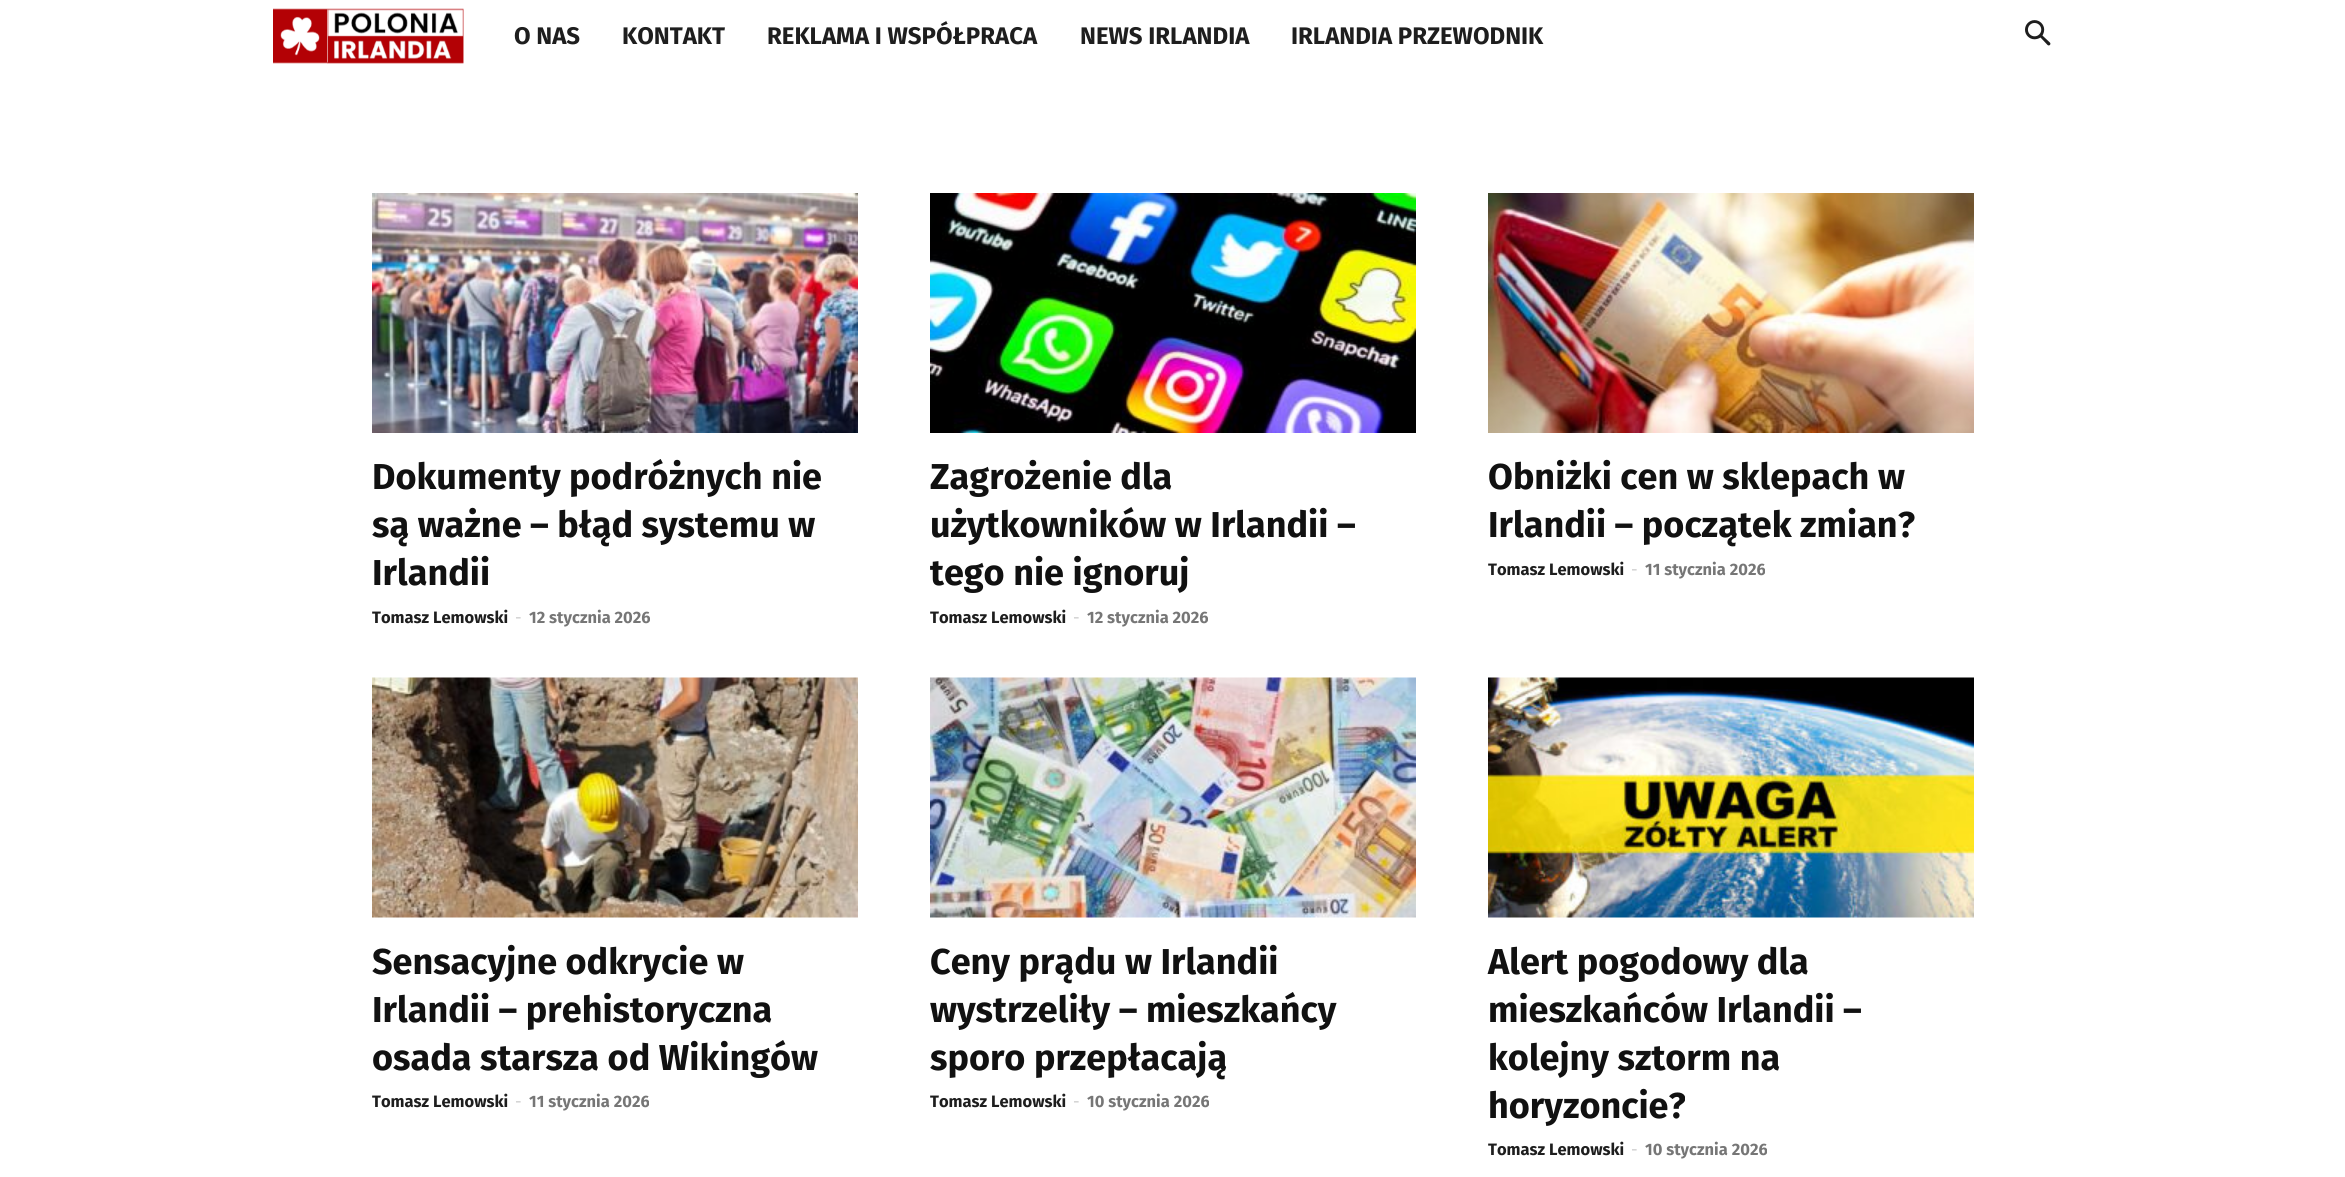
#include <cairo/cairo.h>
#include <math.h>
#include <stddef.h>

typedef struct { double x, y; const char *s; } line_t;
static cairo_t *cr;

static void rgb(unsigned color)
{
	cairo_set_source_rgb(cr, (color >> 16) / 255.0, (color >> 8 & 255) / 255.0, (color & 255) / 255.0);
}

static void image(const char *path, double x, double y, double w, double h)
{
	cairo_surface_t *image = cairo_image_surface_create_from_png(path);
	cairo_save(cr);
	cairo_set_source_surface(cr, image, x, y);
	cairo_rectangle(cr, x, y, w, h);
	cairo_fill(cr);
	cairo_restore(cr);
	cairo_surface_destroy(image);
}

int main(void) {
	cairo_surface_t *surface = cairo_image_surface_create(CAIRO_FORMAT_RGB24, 2345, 1177);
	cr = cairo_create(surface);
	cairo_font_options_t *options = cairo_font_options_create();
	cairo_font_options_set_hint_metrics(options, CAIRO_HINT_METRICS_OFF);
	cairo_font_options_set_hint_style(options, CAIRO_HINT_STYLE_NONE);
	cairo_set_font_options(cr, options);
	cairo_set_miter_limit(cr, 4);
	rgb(0xffffff);
	cairo_paint(cr);
	image("img/1.png", 273, 8, 191, 56);
	image("img/2.png", 2025, 20, 26, 26);
	image("img/3.png", 372, 193, 486, 240);
	image("img/4.png", 930, 193, 486, 240);
	image("img/5.png", 1488, 193, 486, 240);
	image("img/6.png", 372, 677, 486, 241);
	image("img/7.png", 930, 677, 486, 241);
	image("img/8.png", 1488, 677, 486, 241);
	cairo_select_font_face(cr, "Fira Sans", CAIRO_FONT_SLANT_NORMAL, CAIRO_FONT_WEIGHT_BOLD);
	cairo_set_font_size(cr, 24);
	rgb(0x1e1e1e);
	{
		static const line_t items[] = {
			{514, 44, "O NAS"},
			{622, 44, "KONTAKT"},
			{767, 44, "REKLAMA I WSPÓŁPRACA"},
			{1080, 44, "NEWS IRLANDIA"},
			{1291, 44, "IRLANDIA PRZEWODNIK"},
		};
		for (size_t i = 0; i < sizeof items / sizeof *items; i++) {
			cairo_move_to(cr, items[i].x, items[i].y);
			cairo_show_text(cr, items[i].s);
		}
	}
	cairo_set_font_size(cr, 36);
	rgb(0x111111);
	{
		static const line_t items[] = {
			{372, 489, "Dokumenty podróżnych nie"},
			{372, 537, "są ważne – błąd systemu w"},
			{372, 585, "Irlandii"},
		};
		for (size_t i = 0; i < sizeof items / sizeof *items; i++) {
			cairo_move_to(cr, items[i].x, items[i].y);
			cairo_show_text(cr, items[i].s);
		}
	}
	cairo_set_font_size(cr, 16.5);
	rgb(0x1e1e1e);
	cairo_move_to(cr, 372, 623);
	cairo_show_text(cr, "Tomasz Lemowski");
	cairo_select_font_face(cr, "Fira Sans", CAIRO_FONT_SLANT_NORMAL, CAIRO_FONT_WEIGHT_NORMAL);
	rgb(0xcccccc);
	cairo_move_to(cr, 515, 623);
	cairo_show_text(cr, "-");
	cairo_select_font_face(cr, "Fira Sans", CAIRO_FONT_SLANT_NORMAL, CAIRO_FONT_WEIGHT_BOLD);
	rgb(0x767676);
	cairo_move_to(cr, 529, 623);
	cairo_show_text(cr, "12 stycznia 2026");
	cairo_set_font_size(cr, 36);
	rgb(0x111111);
	{
		static const line_t items[] = {
			{930, 489, "Zagrożenie dla"},
			{930, 537, "użytkowników w Irlandii –"},
			{930, 585, "tego nie ignoruj"},
		};
		for (size_t i = 0; i < sizeof items / sizeof *items; i++) {
			cairo_move_to(cr, items[i].x, items[i].y);
			cairo_show_text(cr, items[i].s);
		}
	}
	cairo_set_font_size(cr, 16.5);
	rgb(0x1e1e1e);
	cairo_move_to(cr, 930, 623);
	cairo_show_text(cr, "Tomasz Lemowski");
	cairo_select_font_face(cr, "Fira Sans", CAIRO_FONT_SLANT_NORMAL, CAIRO_FONT_WEIGHT_NORMAL);
	rgb(0xcccccc);
	cairo_move_to(cr, 1073, 623);
	cairo_show_text(cr, "-");
	cairo_select_font_face(cr, "Fira Sans", CAIRO_FONT_SLANT_NORMAL, CAIRO_FONT_WEIGHT_BOLD);
	rgb(0x767676);
	cairo_move_to(cr, 1087, 623);
	cairo_show_text(cr, "12 stycznia 2026");
	cairo_set_font_size(cr, 36);
	rgb(0x111111);
	cairo_move_to(cr, 1488, 489);
	cairo_show_text(cr, "Obniżki cen w sklepach w");
	cairo_move_to(cr, 1488, 537);
	cairo_show_text(cr, "Irlandii – początek zmian?");
	cairo_set_font_size(cr, 16.5);
	rgb(0x1e1e1e);
	cairo_move_to(cr, 1488, 575);
	cairo_show_text(cr, "Tomasz Lemowski");
	cairo_select_font_face(cr, "Fira Sans", CAIRO_FONT_SLANT_NORMAL, CAIRO_FONT_WEIGHT_NORMAL);
	rgb(0xcccccc);
	cairo_move_to(cr, 1631, 575);
	cairo_show_text(cr, "-");
	cairo_select_font_face(cr, "Fira Sans", CAIRO_FONT_SLANT_NORMAL, CAIRO_FONT_WEIGHT_BOLD);
	rgb(0x767676);
	cairo_move_to(cr, 1645, 575);
	cairo_show_text(cr, "11 stycznia 2026");
	cairo_set_font_size(cr, 36);
	rgb(0x111111);
	{
		static const line_t items[] = {
			{372, 974, "Sensacyjne odkrycie w"},
			{372, 1022, "Irlandii – prehistoryczna"},
			{372, 1070, "osada starsza od Wikingów"},
		};
		for (size_t i = 0; i < sizeof items / sizeof *items; i++) {
			cairo_move_to(cr, items[i].x, items[i].y);
			cairo_show_text(cr, items[i].s);
		}
	}
	cairo_set_font_size(cr, 16.5);
	rgb(0x1e1e1e);
	cairo_move_to(cr, 372, 1107);
	cairo_show_text(cr, "Tomasz Lemowski");
	cairo_select_font_face(cr, "Fira Sans", CAIRO_FONT_SLANT_NORMAL, CAIRO_FONT_WEIGHT_NORMAL);
	rgb(0xcccccc);
	cairo_move_to(cr, 515, 1107);
	cairo_show_text(cr, "-");
	cairo_select_font_face(cr, "Fira Sans", CAIRO_FONT_SLANT_NORMAL, CAIRO_FONT_WEIGHT_BOLD);
	rgb(0x767676);
	cairo_move_to(cr, 529, 1107);
	cairo_show_text(cr, "11 stycznia 2026");
	cairo_set_font_size(cr, 36);
	rgb(0x111111);
	{
		static const line_t items[] = {
			{930, 974, "Ceny prądu w Irlandii"},
			{930, 1022, "wystrzeliły – mieszkańcy"},
			{930, 1070, "sporo przepłacają"},
		};
		for (size_t i = 0; i < sizeof items / sizeof *items; i++) {
			cairo_move_to(cr, items[i].x, items[i].y);
			cairo_show_text(cr, items[i].s);
		}
	}
	cairo_set_font_size(cr, 16.5);
	rgb(0x1e1e1e);
	cairo_move_to(cr, 930, 1107);
	cairo_show_text(cr, "Tomasz Lemowski");
	cairo_select_font_face(cr, "Fira Sans", CAIRO_FONT_SLANT_NORMAL, CAIRO_FONT_WEIGHT_NORMAL);
	rgb(0xcccccc);
	cairo_move_to(cr, 1073, 1107);
	cairo_show_text(cr, "-");
	cairo_select_font_face(cr, "Fira Sans", CAIRO_FONT_SLANT_NORMAL, CAIRO_FONT_WEIGHT_BOLD);
	rgb(0x767676);
	cairo_move_to(cr, 1087, 1107);
	cairo_show_text(cr, "10 stycznia 2026");
	cairo_set_font_size(cr, 36);
	rgb(0x111111);
	{
		static const line_t items[] = {
			{1488, 974, "Alert pogodowy dla"},
			{1488, 1022, "mieszkańców Irlandii –"},
			{1488, 1070, "kolejny sztorm na"},
			{1488, 1118, "horyzoncie?"},
		};
		for (size_t i = 0; i < sizeof items / sizeof *items; i++) {
			cairo_move_to(cr, items[i].x, items[i].y);
			cairo_show_text(cr, items[i].s);
		}
	}
	cairo_set_font_size(cr, 16.5);
	rgb(0x1e1e1e);
	cairo_move_to(cr, 1488, 1155);
	cairo_show_text(cr, "Tomasz Lemowski");
	cairo_select_font_face(cr, "Fira Sans", CAIRO_FONT_SLANT_NORMAL, CAIRO_FONT_WEIGHT_NORMAL);
	rgb(0xcccccc);
	cairo_move_to(cr, 1631, 1155);
	cairo_show_text(cr, "-");
	cairo_select_font_face(cr, "Fira Sans", CAIRO_FONT_SLANT_NORMAL, CAIRO_FONT_WEIGHT_BOLD);
	rgb(0x767676);
	cairo_move_to(cr, 1645, 1155);
	cairo_show_text(cr, "10 stycznia 2026");
	cairo_surface_write_to_png(surface, "page.png");
	cairo_font_options_destroy(options);
	cairo_destroy(cr);
	cairo_surface_destroy(surface);
	return 0;
}
